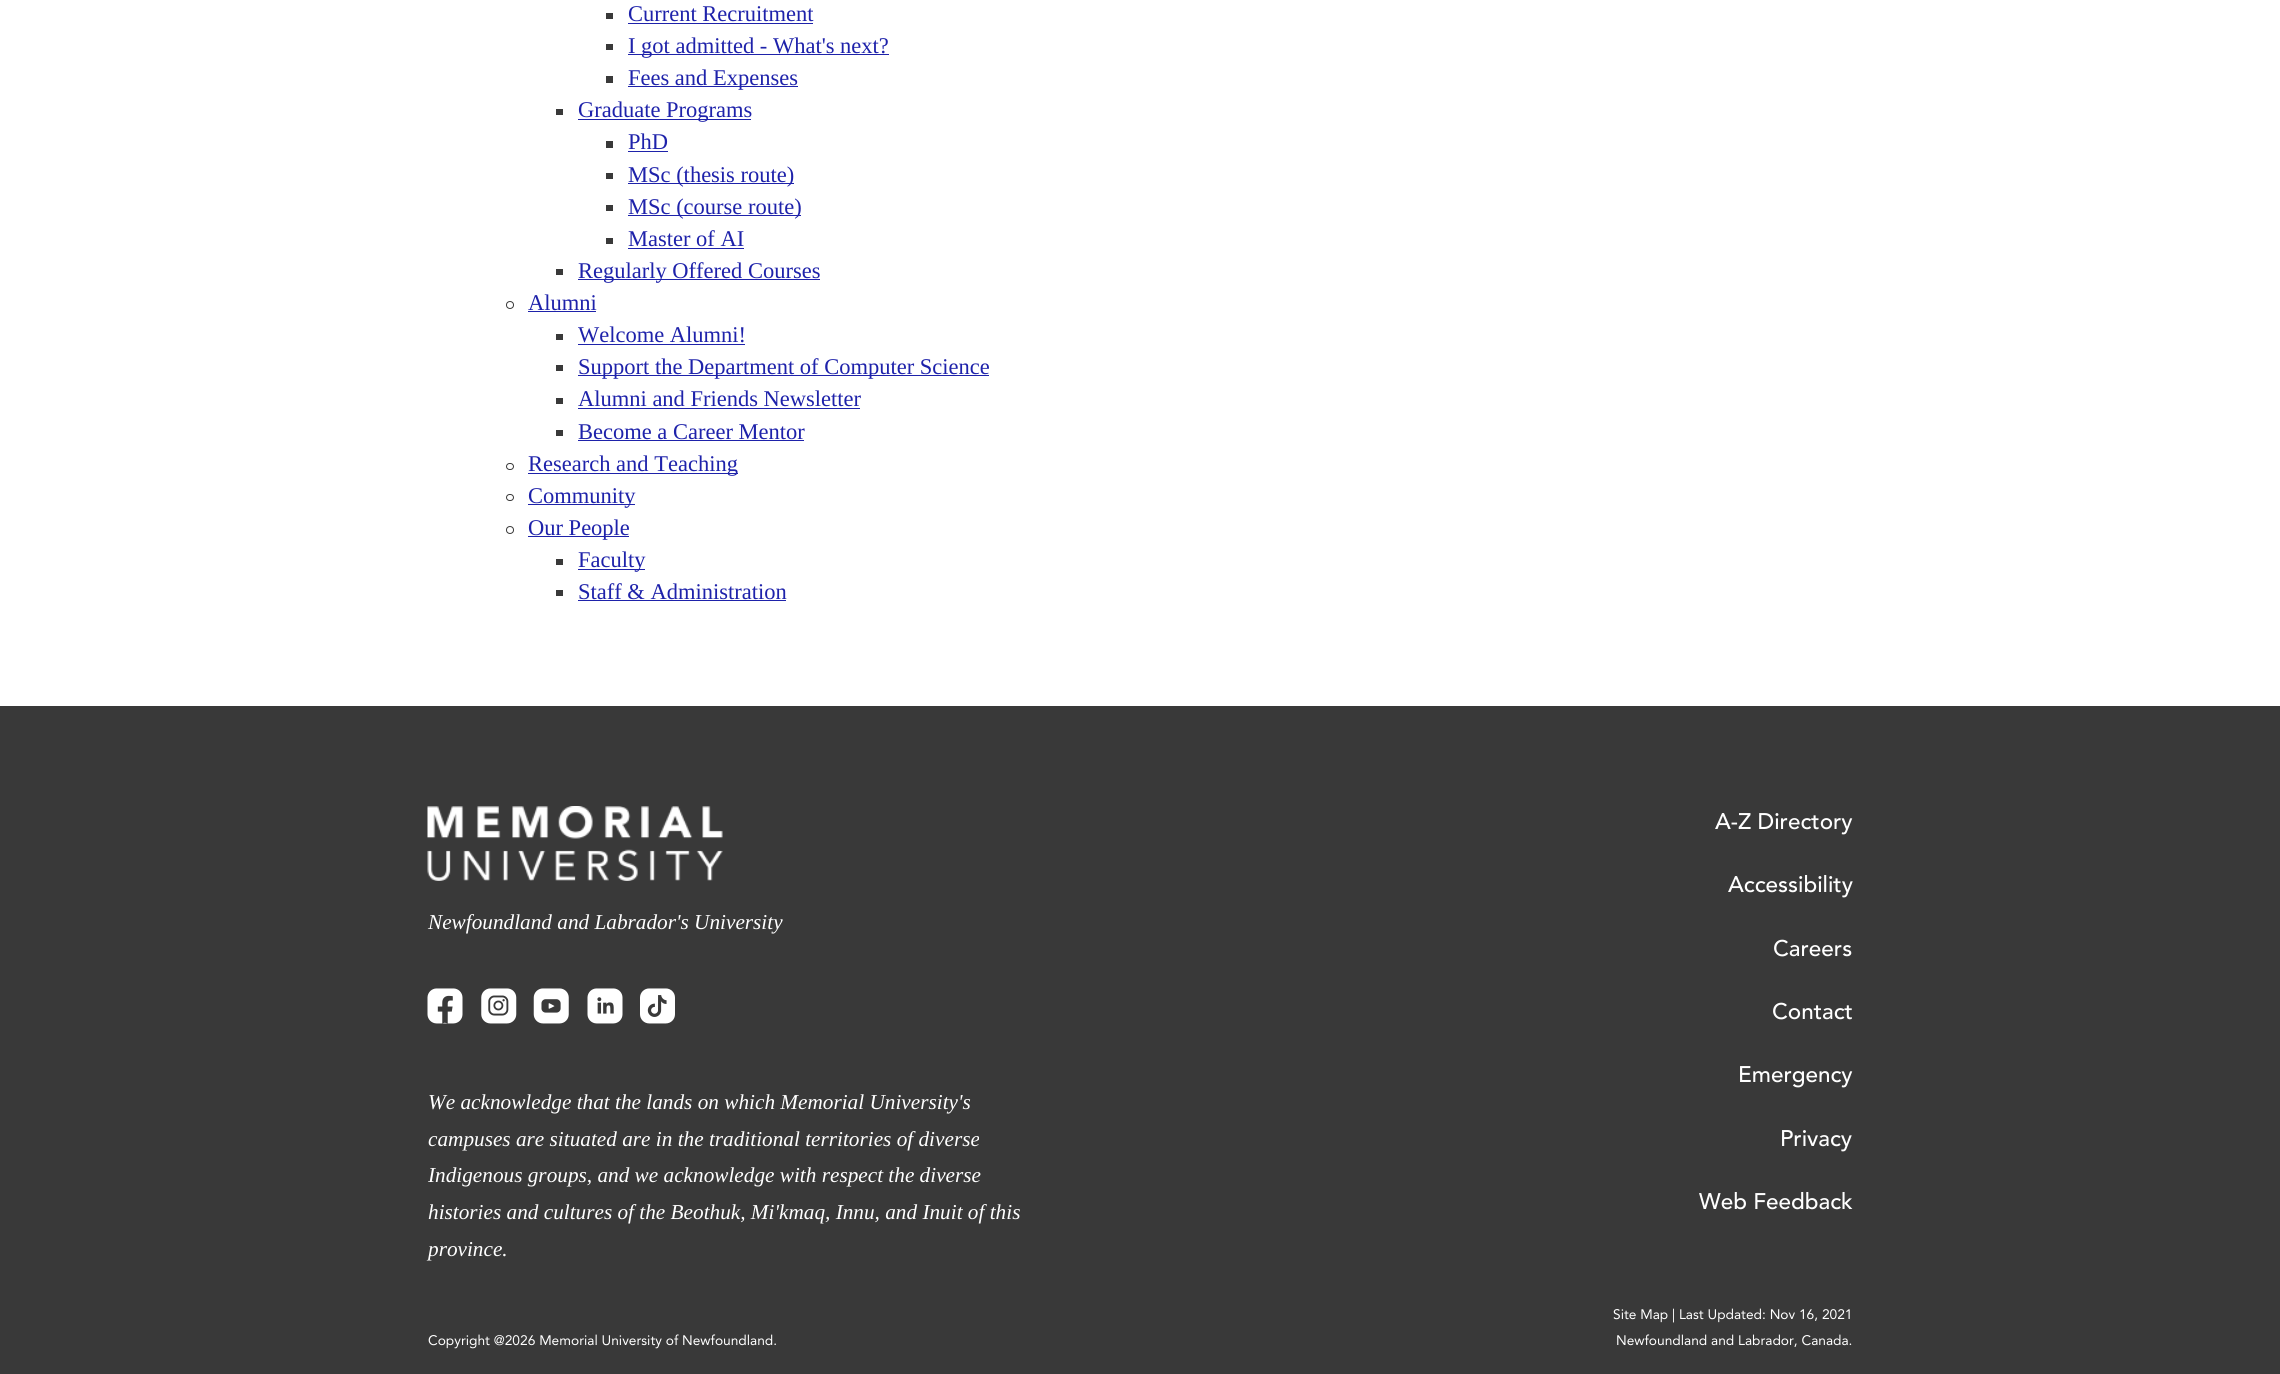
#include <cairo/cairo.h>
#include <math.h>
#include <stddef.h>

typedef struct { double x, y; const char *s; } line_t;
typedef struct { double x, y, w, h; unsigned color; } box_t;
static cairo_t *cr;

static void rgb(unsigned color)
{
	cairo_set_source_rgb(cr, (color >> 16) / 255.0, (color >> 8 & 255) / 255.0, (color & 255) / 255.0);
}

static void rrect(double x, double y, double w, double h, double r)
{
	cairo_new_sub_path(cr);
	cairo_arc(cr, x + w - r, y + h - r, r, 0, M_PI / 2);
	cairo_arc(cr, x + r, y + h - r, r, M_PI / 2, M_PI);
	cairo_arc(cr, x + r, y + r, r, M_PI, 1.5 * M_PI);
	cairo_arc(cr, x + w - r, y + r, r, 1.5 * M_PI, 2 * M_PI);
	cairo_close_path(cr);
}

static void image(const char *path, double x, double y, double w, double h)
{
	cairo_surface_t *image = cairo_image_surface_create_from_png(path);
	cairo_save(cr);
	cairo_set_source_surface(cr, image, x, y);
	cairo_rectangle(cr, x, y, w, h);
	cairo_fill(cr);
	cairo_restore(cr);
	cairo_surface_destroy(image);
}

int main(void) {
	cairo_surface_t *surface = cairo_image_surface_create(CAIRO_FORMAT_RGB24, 2280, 1374);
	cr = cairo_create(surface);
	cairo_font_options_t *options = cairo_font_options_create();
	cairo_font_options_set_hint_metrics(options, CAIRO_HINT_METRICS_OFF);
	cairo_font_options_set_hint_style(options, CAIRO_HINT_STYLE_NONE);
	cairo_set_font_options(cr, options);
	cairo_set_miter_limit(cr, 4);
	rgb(0xffffff);
	cairo_paint(cr);
	{
		static const box_t items[] = {
			{606, 13, 7, 6, 0x393939},
			{628, 23, 185, 1, 0x1e22aa},
			{606, 44, 7, 6, 0x393939},
			{628, 54, 261, 1, 0x1e22aa},
			{606, 76, 7, 7, 0x393939},
			{628, 86, 170, 1, 0x1e22aa},
			{556, 109, 7, 6, 0x393939},
			{578, 119, 173, 1, 0x1e22aa},
			{606, 141, 7, 7, 0x393939},
			{628, 151, 40, 1, 0x1e22aa},
			{606, 173, 7, 6, 0x393939},
			{628, 183, 166, 1, 0x1e22aa},
			{606, 205, 7, 6, 0x393939},
			{628, 215, 173, 1, 0x1e22aa},
			{606, 238, 7, 6, 0x393939},
			{628, 248, 116, 1, 0x1e22aa},
			{556, 269, 7, 6, 0x393939},
			{578, 279, 242, 1, 0x1e22aa},
		};
		for (size_t i = 0; i < sizeof items / sizeof *items; i++) {
			rgb(items[i].color);
			cairo_rectangle(cr, items[i].x, items[i].y, items[i].w, items[i].h);
			cairo_fill(cr);
		}
	}
	cairo_arc(cr, 510, 305, 3.5, 0, 2 * M_PI);
	rgb(0x393939);
	cairo_set_line_width(cr, 1);
	cairo_stroke(cr);
	{
		static const box_t items[] = {
			{528, 311, 68, 1, 0x1e22aa},
			{556, 334, 7, 6, 0x393939},
			{578, 344, 167, 1, 0x1e22aa},
			{556, 365, 7, 6, 0x393939},
			{578, 375, 411, 1, 0x1e22aa},
			{556, 398, 7, 6, 0x393939},
			{578, 408, 282, 1, 0x1e22aa},
			{556, 430, 7, 6, 0x393939},
			{578, 440, 226, 1, 0x1e22aa},
		};
		for (size_t i = 0; i < sizeof items / sizeof *items; i++) {
			rgb(items[i].color);
			cairo_rectangle(cr, items[i].x, items[i].y, items[i].w, items[i].h);
			cairo_fill(cr);
		}
	}
	rrect(506.5, 463.5, 7, 6, 3);
	rgb(0x393939);
	cairo_stroke(cr);
	rgb(0x1e22aa);
	cairo_rectangle(cr, 528, 473, 210, 1);
	cairo_fill(cr);
	rrect(506.5, 494.5, 7, 6, 3);
	rgb(0x393939);
	cairo_stroke(cr);
	rgb(0x1e22aa);
	cairo_rectangle(cr, 528, 504, 107, 1);
	cairo_fill(cr);
	cairo_arc(cr, 510, 530, 3.5, 0, 2 * M_PI);
	rgb(0x393939);
	cairo_stroke(cr);
	{
		static const box_t items[] = {
			{528, 536, 101, 1, 0x1e22aa},
			{556, 559, 7, 6, 0x393939},
			{578, 569, 67, 1, 0x1e22aa},
			{556, 590, 7, 6, 0x393939},
			{578, 600, 208, 1, 0x1e22aa},
			{0, 706, 2280, 668, 0x393939},
		};
		for (size_t i = 0; i < sizeof items / sizeof *items; i++) {
			rgb(items[i].color);
			cairo_rectangle(cr, items[i].x, items[i].y, items[i].w, items[i].h);
			cairo_fill(cr);
		}
	}
	image("img/1.png", 427, 806, 296, 75);
	image("img/2.png", 427, 988, 36, 36);
	image("img/3.png", 481, 988, 36, 36);
	image("img/4.png", 533, 988, 36, 36);
	image("img/5.png", 587, 988, 36, 36);
	image("img/6.png", 640, 988, 35, 36);
	cairo_select_font_face(cr, "Liberation Serif", CAIRO_FONT_SLANT_NORMAL, CAIRO_FONT_WEIGHT_NORMAL);
	cairo_set_font_size(cr, 22.5);
	rgb(0x1e22aa);
	{
		static const line_t items[] = {
			{628, 21, "Current Recruitment"},
			{628, 53, "I got admitted - What's next?"},
			{628, 85, "Fees and Expenses"},
			{578, 117, "Graduate Programs"},
			{628, 149, "PhD"},
			{628, 182, "MSc (thesis route)"},
			{628, 214, "MSc (course route)"},
			{628, 246, "Master of AI"},
			{578, 278, "Regularly Offered Courses"},
			{528, 310, "Alumni"},
			{578, 342, "Welcome Alumni!"},
			{578, 374, "Support the Department of Computer Science"},
			{578, 406, "Alumni and Friends Newsletter"},
			{578, 439, "Become a Career Mentor"},
			{528, 471, "Research and Teaching"},
			{528, 503, "Community"},
			{528, 535, "Our People"},
			{578, 567, "Faculty"},
			{578, 599, "Staff & Administration"},
		};
		for (size_t i = 0; i < sizeof items / sizeof *items; i++) {
			cairo_move_to(cr, items[i].x, items[i].y);
			cairo_show_text(cr, items[i].s);
		}
	}
	cairo_select_font_face(cr, "Liberation Serif", CAIRO_FONT_SLANT_ITALIC, CAIRO_FONT_WEIGHT_NORMAL);
	cairo_set_font_size(cr, 21.25);
	rgb(0xffffff);
	{
		static const line_t items[] = {
			{428, 929, "Newfoundland and Labrador's University"},
			{428, 1109, "We acknowledge that the lands on which Memorial University's"},
			{428, 1146, "campuses are situated are in the traditional territories of diverse"},
			{428, 1182, "Indigenous groups, and we acknowledge with respect the diverse"},
			{428, 1219, "histories and cultures of the Beothuk, Mi'kmaq, Innu, and Inuit of this"},
			{428, 1256, "province."},
		};
		for (size_t i = 0; i < sizeof items / sizeof *items; i++) {
			cairo_move_to(cr, items[i].x, items[i].y);
			cairo_show_text(cr, items[i].s);
		}
	}
	cairo_select_font_face(cr, "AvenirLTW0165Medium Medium", CAIRO_FONT_SLANT_NORMAL, CAIRO_FONT_WEIGHT_NORMAL);
	cairo_set_font_size(cr, 22.5);
	{
		static const line_t items[] = {
			{1715, 829, "A-Z Directory"},
			{1728, 892, "Accessibility"},
			{1773, 956, "Careers"},
			{1772, 1019, "Contact"},
			{1738, 1082, "Emergency"},
			{1780, 1146, "Privacy"},
			{1699, 1209, "Web Feedback"},
		};
		for (size_t i = 0; i < sizeof items / sizeof *items; i++) {
			cairo_move_to(cr, items[i].x, items[i].y);
			cairo_show_text(cr, items[i].s);
		}
	}
	cairo_select_font_face(cr, "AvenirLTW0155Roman", CAIRO_FONT_SLANT_NORMAL, CAIRO_FONT_WEIGHT_NORMAL);
	cairo_set_font_size(cr, 13.75);
	{
		static const line_t items[] = {
			{1613, 1319, "Site Map | Last Updated: Nov 16, 2021"},
			{428, 1345, "Copyright @2026 Memorial University of Newfoundland."},
			{1616, 1345, "Newfoundland and Labrador, Canada."},
		};
		for (size_t i = 0; i < sizeof items / sizeof *items; i++) {
			cairo_move_to(cr, items[i].x, items[i].y);
			cairo_show_text(cr, items[i].s);
		}
	}
	cairo_surface_write_to_png(surface, "page.png");
	cairo_font_options_destroy(options);
	cairo_destroy(cr);
	cairo_surface_destroy(surface);
	return 0;
}
